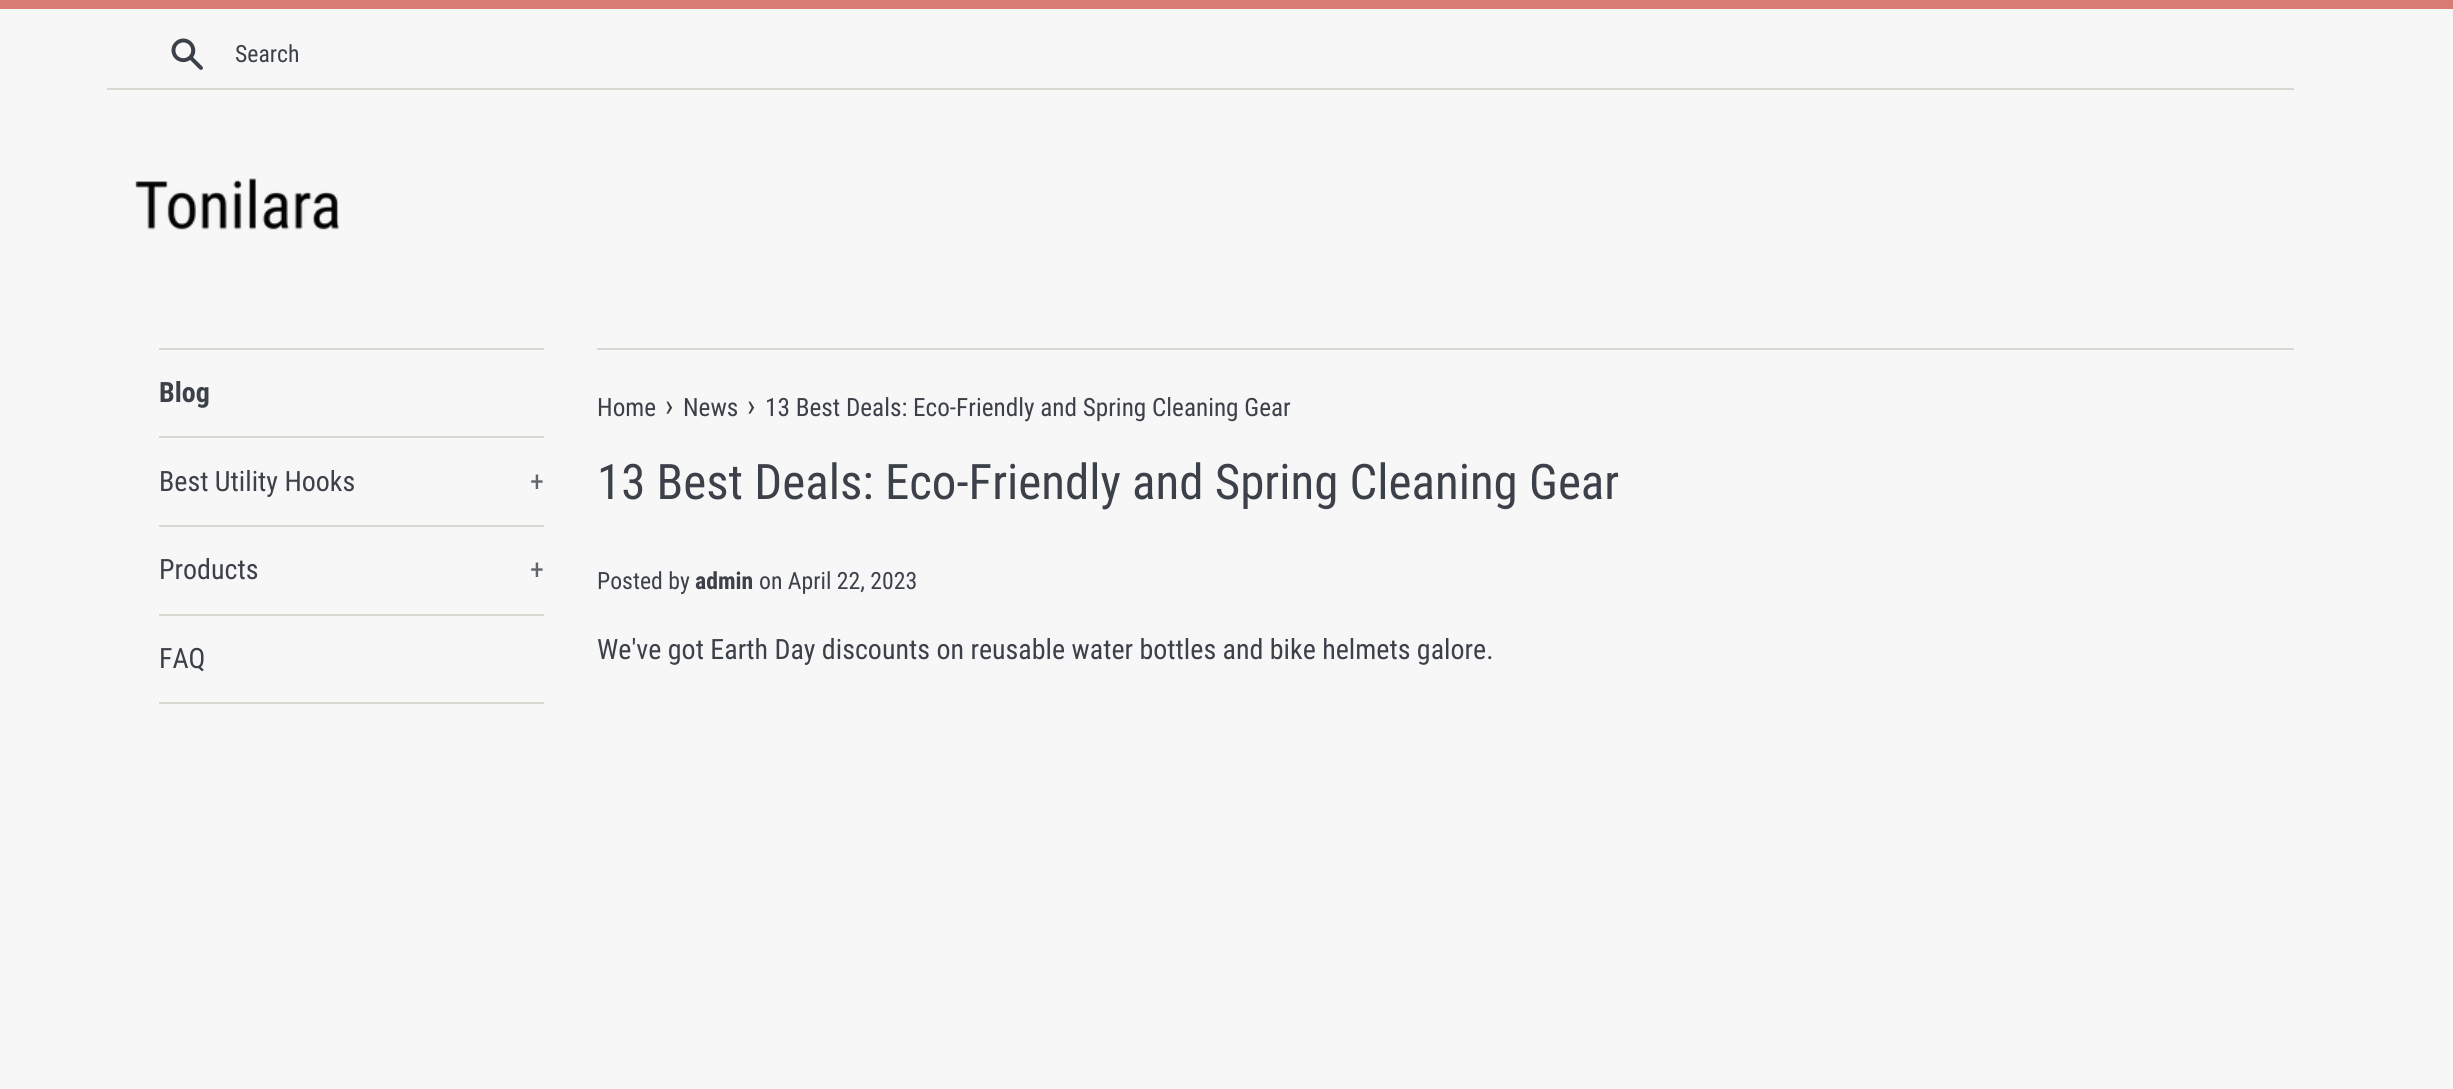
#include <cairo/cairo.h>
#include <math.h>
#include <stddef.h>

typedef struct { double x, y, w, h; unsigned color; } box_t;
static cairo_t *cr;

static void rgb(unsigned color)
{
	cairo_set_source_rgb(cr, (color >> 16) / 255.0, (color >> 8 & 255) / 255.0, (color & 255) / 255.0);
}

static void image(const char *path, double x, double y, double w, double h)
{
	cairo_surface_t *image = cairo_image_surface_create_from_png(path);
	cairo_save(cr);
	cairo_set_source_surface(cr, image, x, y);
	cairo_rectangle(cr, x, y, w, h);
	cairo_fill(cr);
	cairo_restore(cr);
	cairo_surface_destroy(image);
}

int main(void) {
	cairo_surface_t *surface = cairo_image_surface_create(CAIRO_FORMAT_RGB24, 2453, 1089);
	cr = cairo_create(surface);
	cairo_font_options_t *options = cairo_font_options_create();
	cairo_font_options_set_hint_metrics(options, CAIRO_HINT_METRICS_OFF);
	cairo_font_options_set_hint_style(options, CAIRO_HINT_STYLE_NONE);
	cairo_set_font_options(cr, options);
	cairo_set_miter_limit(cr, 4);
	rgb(0xf7f7f7);
	cairo_paint(cr);
	rgb(0xd97c76);
	cairo_rectangle(cr, 0, 0, 2453, 9);
	cairo_fill(cr);
	image("img/1.png", 171, 38, 32, 32);
	rgb(0xd7d8d2);
	cairo_rectangle(cr, 107, 88, 2187, 2);
	cairo_fill(cr);
	image("img/2.png", 135, 178, 204, 52);
	{
		static const box_t items[] = {
			{159, 348, 385, 2, 0xd7d8d2},
			{159, 436, 385, 2, 0xd7d8d2},
			{159, 525, 385, 2, 0xd7d8d2},
			{159, 614, 385, 2, 0xd7d8d2},
			{159, 702, 385, 2, 0xd7d8d2},
			{597, 348, 1697, 2, 0xd7d8d2},
		};
		for (size_t i = 0; i < sizeof items / sizeof *items; i++) {
			rgb(items[i].color);
			cairo_rectangle(cr, items[i].x, items[i].y, items[i].w, items[i].h);
			cairo_fill(cr);
		}
	}
	cairo_select_font_face(cr, "Roboto Condensed", CAIRO_FONT_SLANT_NORMAL, CAIRO_FONT_WEIGHT_NORMAL);
	cairo_set_font_size(cr, 23.75);
	rgb(0x3c4049);
	cairo_move_to(cr, 235, 62);
	cairo_show_text(cr, "Search");
	cairo_select_font_face(cr, "Roboto Condensed", CAIRO_FONT_SLANT_NORMAL, CAIRO_FONT_WEIGHT_BOLD);
	cairo_set_font_size(cr, 28);
	cairo_move_to(cr, 159, 402);
	cairo_show_text(cr, "Blog");
	cairo_select_font_face(cr, "Roboto Condensed", CAIRO_FONT_SLANT_NORMAL, CAIRO_FONT_WEIGHT_NORMAL);
	cairo_move_to(cr, 159, 491);
	cairo_show_text(cr, "Best Utility Hooks");
	rgb(0x61656c);
	cairo_move_to(cr, 530, 491);
	cairo_show_text(cr, "+");
	rgb(0x3c4049);
	cairo_move_to(cr, 159, 579);
	cairo_show_text(cr, "Products");
	rgb(0x61656c);
	cairo_move_to(cr, 530, 579);
	cairo_show_text(cr, "+");
	rgb(0x3c4049);
	cairo_move_to(cr, 159, 668);
	cairo_show_text(cr, "FAQ");
	cairo_set_font_size(cr, 25.2);
	cairo_move_to(cr, 597, 416);
	cairo_show_text(cr, "Home");
	cairo_set_font_size(cr, 31);
	cairo_move_to(cr, 665, 416);
	cairo_show_text(cr, "›");
	cairo_set_font_size(cr, 25.2);
	cairo_move_to(cr, 683, 416);
	cairo_show_text(cr, "News");
	cairo_set_font_size(cr, 31);
	cairo_move_to(cr, 747, 416);
	cairo_show_text(cr, "›");
	cairo_set_font_size(cr, 25.2);
	cairo_move_to(cr, 765, 416);
	cairo_show_text(cr, "13 Best Deals: Eco-Friendly and Spring Cleaning Gear");
	cairo_set_font_size(cr, 49);
	cairo_move_to(cr, 597, 499);
	cairo_show_text(cr, "13 Best Deals: Eco-Friendly and Spring Cleaning Gear");
	cairo_set_font_size(cr, 23.75);
	cairo_move_to(cr, 597, 589);
	cairo_show_text(cr, "Posted by");
	cairo_select_font_face(cr, "Roboto Condensed", CAIRO_FONT_SLANT_NORMAL, CAIRO_FONT_WEIGHT_BOLD);
	cairo_move_to(cr, 695, 589);
	cairo_show_text(cr, "admin");
	cairo_select_font_face(cr, "Roboto Condensed", CAIRO_FONT_SLANT_NORMAL, CAIRO_FONT_WEIGHT_NORMAL);
	cairo_move_to(cr, 759, 589);
	cairo_show_text(cr, "on April 22, 2023");
	cairo_set_font_size(cr, 28);
	cairo_move_to(cr, 597, 659);
	cairo_show_text(cr, "We've got Earth Day discounts on reusable water bottles and bike helmets galore.");
	cairo_surface_write_to_png(surface, "page.png");
	cairo_font_options_destroy(options);
	cairo_destroy(cr);
	cairo_surface_destroy(surface);
	return 0;
}
